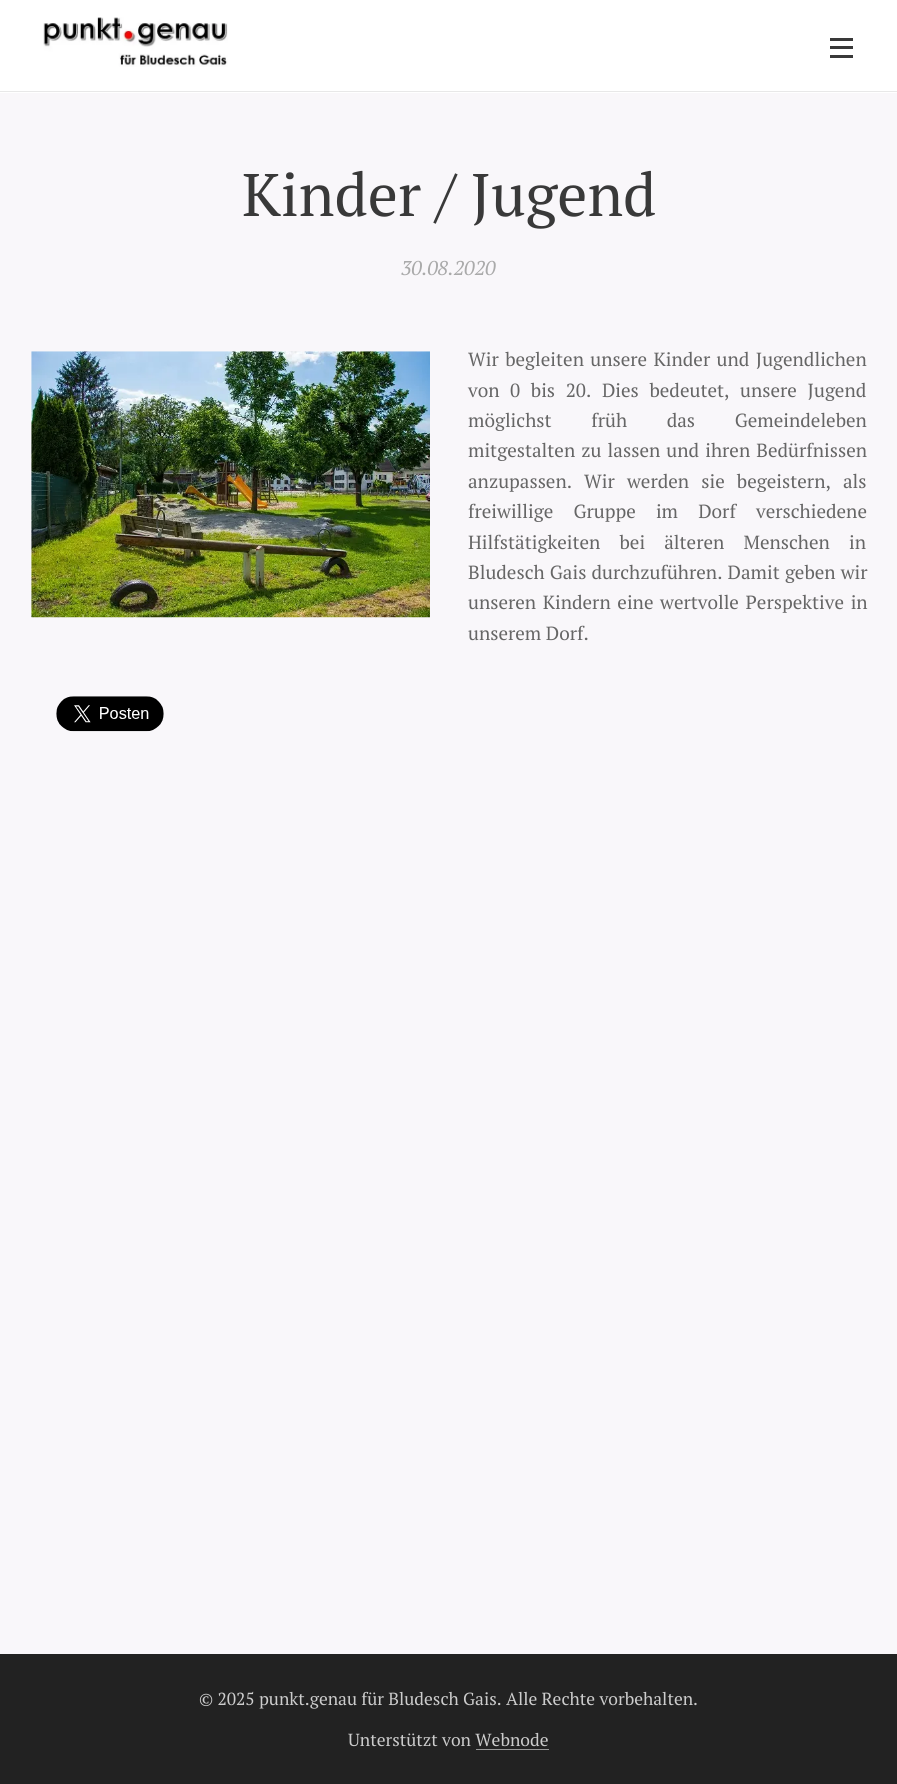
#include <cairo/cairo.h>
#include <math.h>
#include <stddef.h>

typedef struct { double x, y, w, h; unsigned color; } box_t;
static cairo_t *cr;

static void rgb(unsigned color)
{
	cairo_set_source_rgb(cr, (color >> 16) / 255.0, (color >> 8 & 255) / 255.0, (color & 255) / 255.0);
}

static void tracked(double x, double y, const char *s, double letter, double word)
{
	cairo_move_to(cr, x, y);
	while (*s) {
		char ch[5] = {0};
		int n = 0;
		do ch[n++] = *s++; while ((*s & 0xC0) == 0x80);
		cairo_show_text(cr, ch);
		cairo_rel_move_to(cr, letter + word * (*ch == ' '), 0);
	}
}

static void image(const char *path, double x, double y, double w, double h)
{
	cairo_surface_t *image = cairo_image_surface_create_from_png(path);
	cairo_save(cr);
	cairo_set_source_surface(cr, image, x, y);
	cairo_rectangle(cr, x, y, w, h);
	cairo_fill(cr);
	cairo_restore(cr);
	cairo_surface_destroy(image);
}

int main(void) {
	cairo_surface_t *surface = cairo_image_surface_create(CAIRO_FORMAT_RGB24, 897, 1784);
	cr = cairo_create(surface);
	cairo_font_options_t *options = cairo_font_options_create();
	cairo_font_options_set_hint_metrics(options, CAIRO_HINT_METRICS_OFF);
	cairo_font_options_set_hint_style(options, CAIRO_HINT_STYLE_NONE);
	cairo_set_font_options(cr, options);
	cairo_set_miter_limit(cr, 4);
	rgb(0xffffff);
	cairo_paint(cr);
	image("img/1.png", 43, 17, 185, 50);
	{
		static const box_t items[] = {
			{830, 46, 23, 3, 0x393939},
			{830, 38, 23, 3, 0x393939},
			{830, 55, 23, 3, 0x393939},
			{0, 91, 897, 1, 0xe8e8e8},
			{0, 93, 897, 1561, 0xf9f7fa},
		};
		for (size_t i = 0; i < sizeof items / sizeof *items; i++) {
			rgb(items[i].color);
			cairo_rectangle(cr, items[i].x, items[i].y, items[i].w, items[i].h);
			cairo_fill(cr);
		}
	}
	image("img/2.png", 31, 351, 399, 267);
	image("img/3.png", 56, 696, 108, 36);
	rgb(0x222222);
	cairo_rectangle(cr, 0, 1654, 897, 130);
	cairo_fill(cr);
	rgb(0x999999);
	cairo_rectangle(cr, 476, 1749, 73, 1);
	cairo_fill(cr);
	cairo_select_font_face(cr, "PT Serif", CAIRO_FONT_SLANT_NORMAL, CAIRO_FONT_WEIGHT_NORMAL);
	cairo_set_font_size(cr, 60);
	rgb(0x393939);
	cairo_move_to(cr, 242, 216);
	cairo_show_text(cr, "Kinder / Jugend");
	cairo_select_font_face(cr, "PT Serif", CAIRO_FONT_SLANT_ITALIC, CAIRO_FONT_WEIGHT_NORMAL);
	cairo_set_font_size(cr, 20);
	rgb(0xaaaaaa);
	cairo_move_to(cr, 401, 275);
	cairo_show_text(cr, "30.08.2020");
	cairo_select_font_face(cr, "PT Serif", CAIRO_FONT_SLANT_NORMAL, CAIRO_FONT_WEIGHT_NORMAL);
	cairo_set_font_size(cr, 19);
	rgb(0x666666);
	tracked(468, 366, "Wir begleiten unsere Kinder und Jugendlichen", 0, 1.75);
	tracked(468, 397, "von 0 bis 20. Dies bedeutet, unsere Jugend", 0, 6);
	tracked(468, 427, "möglichst früh das Gemeindeleben", 0, 35);
	tracked(468, 457, "mitgestalten zu lassen und ihren Bedürfnissen", 0, 1.5);
	tracked(468, 488, "anzupassen. Wir werden sie begeistern, als", 0, 7.5);
	tracked(468, 518, "freiwillige Gruppe im Dorf verschiedene", 0, 15.5);
	tracked(468, 549, "Hilfstätigkeiten bei älteren Menschen in", 0, 14.5);
	tracked(468, 579, "Bludesch Gais durchzuführen. Damit geben wir", 0, 0.5);
	tracked(468, 609, "unseren Kindern eine wertvolle Perspektive in", 0, 2);
	cairo_move_to(cr, 468, 640);
	cairo_show_text(cr, "unserem Dorf.");
	cairo_set_font_size(cr, 17.5);
	rgb(0xcccccc);
	cairo_move_to(cr, 199, 1705);
	cairo_show_text(cr, "© 2025 punkt.genau für Bludesch Gais. Alle Rechte vorbehalten.");
	cairo_move_to(cr, 348, 1746);
	cairo_show_text(cr, "Unterstützt von Webnode");
	cairo_surface_write_to_png(surface, "page.png");
	cairo_font_options_destroy(options);
	cairo_destroy(cr);
	cairo_surface_destroy(surface);
	return 0;
}
